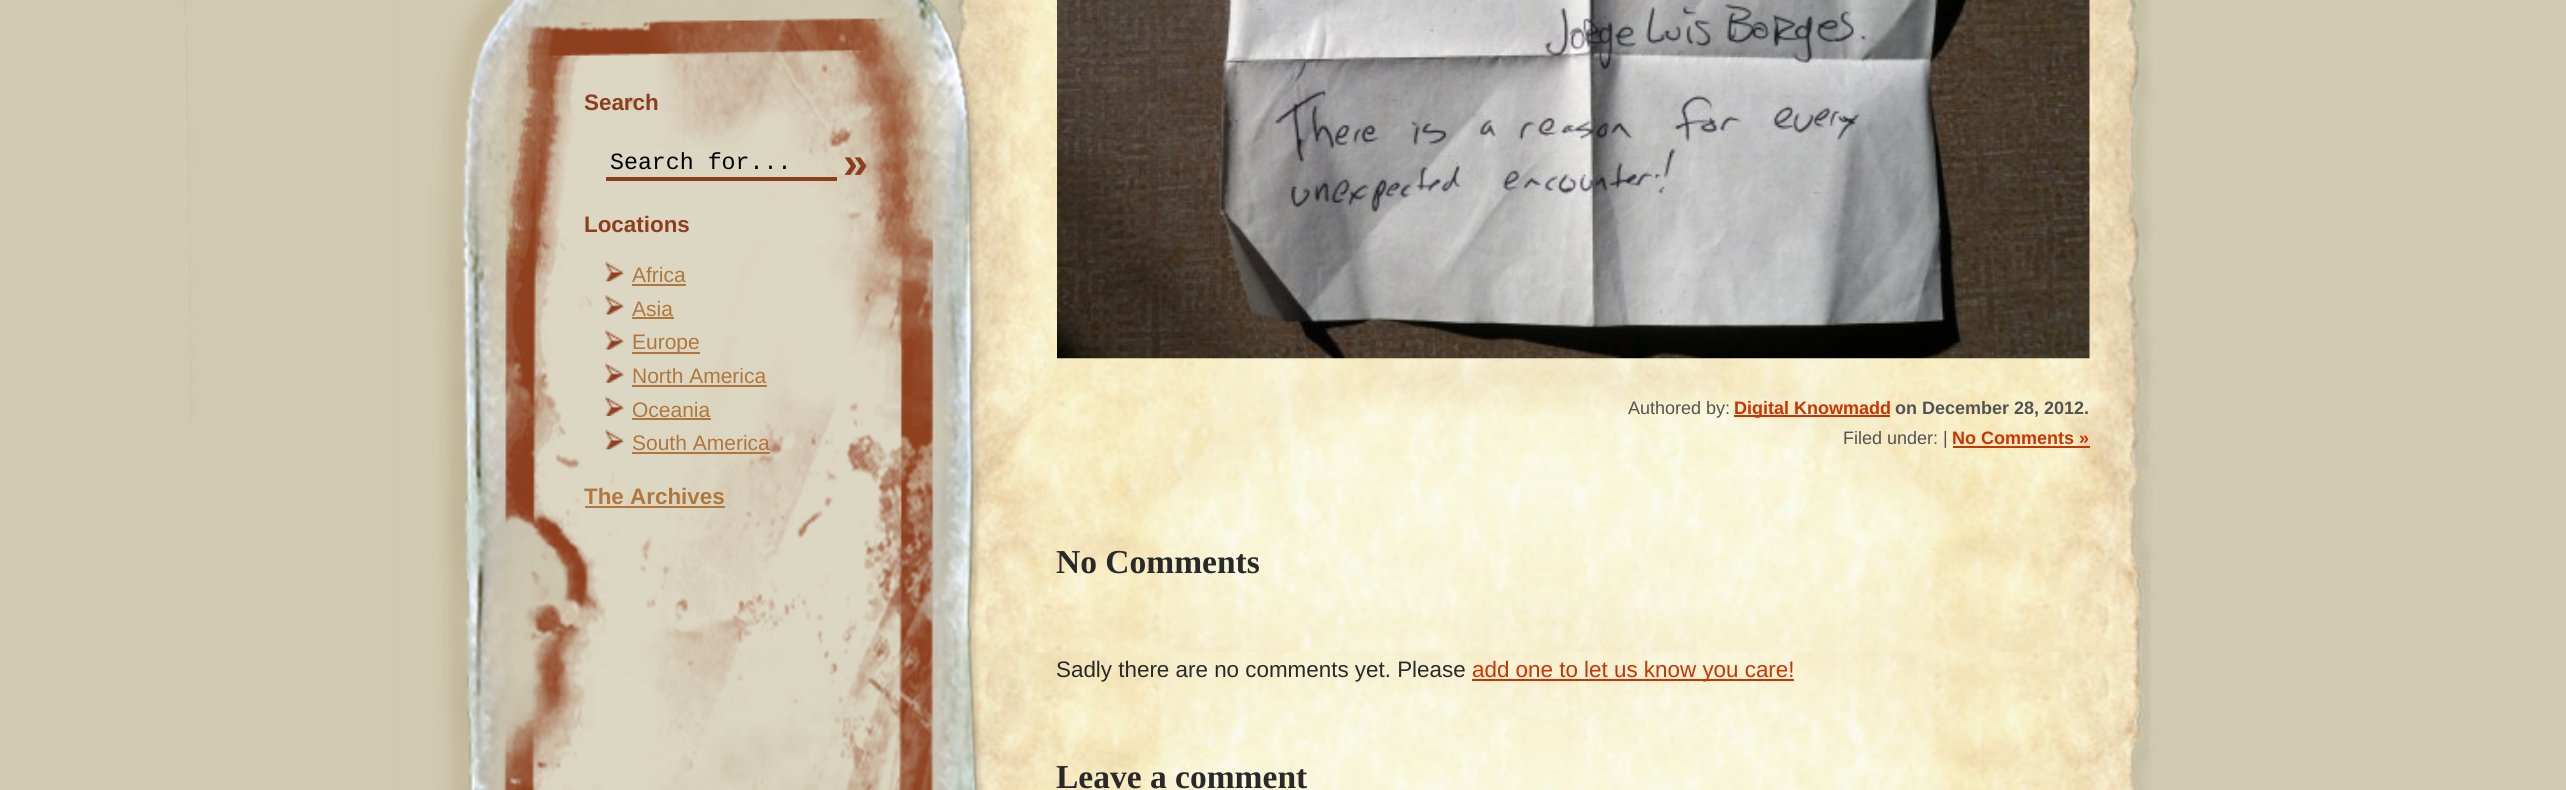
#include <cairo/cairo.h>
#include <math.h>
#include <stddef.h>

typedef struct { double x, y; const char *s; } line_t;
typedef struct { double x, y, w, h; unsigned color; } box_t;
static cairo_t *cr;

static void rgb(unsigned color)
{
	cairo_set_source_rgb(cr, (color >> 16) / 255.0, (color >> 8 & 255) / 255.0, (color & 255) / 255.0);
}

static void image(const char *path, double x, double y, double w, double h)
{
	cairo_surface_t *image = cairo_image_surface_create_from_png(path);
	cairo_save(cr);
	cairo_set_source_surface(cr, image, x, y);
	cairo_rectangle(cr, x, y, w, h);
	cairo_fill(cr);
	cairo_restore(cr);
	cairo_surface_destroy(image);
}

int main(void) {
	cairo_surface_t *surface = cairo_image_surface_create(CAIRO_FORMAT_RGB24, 2566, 790);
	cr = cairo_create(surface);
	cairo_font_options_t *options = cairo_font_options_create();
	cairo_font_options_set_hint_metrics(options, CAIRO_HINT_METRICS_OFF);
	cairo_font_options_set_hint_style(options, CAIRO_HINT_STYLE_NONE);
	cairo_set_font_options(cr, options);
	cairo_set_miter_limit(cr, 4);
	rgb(0xd1cab1);
	cairo_paint(cr);
	image("img/6.png", 935, 0, 1218, 790);
	image("img/1.png", 183, 0, 878, 790);
	rgb(0x8d3f1d);
	cairo_rectangle(cr, 606, 177, 231, 4);
	cairo_fill(cr);
	image("img/2.png", 605, 261, 19, 21);
	rgb(0xb1763b);
	cairo_rectangle(cr, 632, 284, 54, 2);
	cairo_fill(cr);
	image("img/3.png", 605, 295, 19, 20);
	cairo_rectangle(cr, 632, 317, 42, 2);
	cairo_fill(cr);
	image("img/3.png", 605, 330, 19, 20);
	cairo_rectangle(cr, 632, 352, 68, 2);
	cairo_fill(cr);
	image("img/4.png", 605, 363, 19, 20);
	cairo_rectangle(cr, 632, 385, 135, 2);
	cairo_fill(cr);
	image("img/5.png", 605, 396, 19, 20);
	cairo_rectangle(cr, 632, 418, 79, 2);
	cairo_fill(cr);
	image("img/2.png", 605, 429, 19, 21);
	cairo_rectangle(cr, 632, 452, 138, 2);
	cairo_fill(cr);
	cairo_rectangle(cr, 585, 506, 140, 2);
	cairo_fill(cr);
	image("img/7.png", 1057, 0, 1033, 359);
	{
		static const box_t items[] = {
			{1734, 415, 156, 2, 0xcc3300},
			{1953, 446, 137, 2, 0xcc3300},
			{1472, 679, 322, 2, 0xcc3300},
		};
		for (size_t i = 0; i < sizeof items / sizeof *items; i++) {
			rgb(items[i].color);
			cairo_rectangle(cr, items[i].x, items[i].y, items[i].w, items[i].h);
			cairo_fill(cr);
		}
	}
	cairo_select_font_face(cr, "Liberation Sans", CAIRO_FONT_SLANT_NORMAL, CAIRO_FONT_WEIGHT_BOLD);
	cairo_set_font_size(cr, 22.4);
	rgb(0x8c3e1d);
	cairo_move_to(cr, 584, 110);
	cairo_show_text(cr, "Search");
	cairo_select_font_face(cr, "Liberation Mono", CAIRO_FONT_SLANT_NORMAL, CAIRO_FONT_WEIGHT_NORMAL);
	cairo_set_font_size(cr, 23.25);
	rgb(0x000000);
	cairo_move_to(cr, 610, 169);
	cairo_show_text(cr, "Search for...");
	cairo_select_font_face(cr, "Liberation Sans", CAIRO_FONT_SLANT_NORMAL, CAIRO_FONT_WEIGHT_BOLD);
	cairo_set_font_size(cr, 45);
	rgb(0x8c3e1d);
	cairo_move_to(cr, 843, 178);
	cairo_show_text(cr, "»");
	cairo_set_font_size(cr, 22.4);
	cairo_move_to(cr, 584, 232);
	cairo_show_text(cr, "Locations");
	cairo_select_font_face(cr, "Liberation Sans", CAIRO_FONT_SLANT_NORMAL, CAIRO_FONT_WEIGHT_NORMAL);
	cairo_set_font_size(cr, 21);
	rgb(0xb1763b);
	{
		static const line_t items[] = {
			{632, 282, "Africa"},
			{632, 316, "Asia"},
			{632, 349, "Europe"},
			{632, 383, "North America"},
			{632, 417, "Oceania"},
			{632, 450, "South America"},
		};
		for (size_t i = 0; i < sizeof items / sizeof *items; i++) {
			cairo_move_to(cr, items[i].x, items[i].y);
			cairo_show_text(cr, items[i].s);
		}
	}
	cairo_select_font_face(cr, "Liberation Sans", CAIRO_FONT_SLANT_NORMAL, CAIRO_FONT_WEIGHT_BOLD);
	cairo_set_font_size(cr, 22.4);
	cairo_move_to(cr, 584, 504);
	cairo_show_text(cr, "The Archives");
	cairo_select_font_face(cr, "Liberation Sans", CAIRO_FONT_SLANT_NORMAL, CAIRO_FONT_WEIGHT_NORMAL);
	cairo_set_font_size(cr, 18);
	rgb(0x535353);
	cairo_move_to(cr, 1628, 414);
	cairo_show_text(cr, "Authored by:");
	cairo_select_font_face(cr, "Liberation Sans", CAIRO_FONT_SLANT_NORMAL, CAIRO_FONT_WEIGHT_BOLD);
	rgb(0xcc3300);
	cairo_move_to(cr, 1734, 414);
	cairo_show_text(cr, "Digital Knowmadd");
	rgb(0x535353);
	cairo_move_to(cr, 1895, 414);
	cairo_show_text(cr, "on December 28, 2012.");
	cairo_select_font_face(cr, "Liberation Sans", CAIRO_FONT_SLANT_NORMAL, CAIRO_FONT_WEIGHT_NORMAL);
	cairo_move_to(cr, 1843, 444);
	cairo_show_text(cr, "Filed under: |");
	cairo_select_font_face(cr, "Liberation Sans", CAIRO_FONT_SLANT_NORMAL, CAIRO_FONT_WEIGHT_BOLD);
	rgb(0xcc3300);
	cairo_move_to(cr, 1952, 444);
	cairo_show_text(cr, "No Comments »");
	cairo_select_font_face(cr, "Liberation Serif", CAIRO_FONT_SLANT_NORMAL, CAIRO_FONT_WEIGHT_BOLD);
	cairo_set_font_size(cr, 33.5);
	rgb(0x292929);
	cairo_move_to(cr, 1056, 573);
	cairo_show_text(cr, "No Comments");
	cairo_select_font_face(cr, "Liberation Sans", CAIRO_FONT_SLANT_NORMAL, CAIRO_FONT_WEIGHT_NORMAL);
	cairo_set_font_size(cr, 22.4);
	cairo_move_to(cr, 1056, 677);
	cairo_show_text(cr, "Sadly there are no comments yet. Please");
	rgb(0xcc3300);
	cairo_move_to(cr, 1472, 677);
	cairo_show_text(cr, "add one to let us know you care!");
	cairo_select_font_face(cr, "Liberation Serif", CAIRO_FONT_SLANT_NORMAL, CAIRO_FONT_WEIGHT_BOLD);
	cairo_set_font_size(cr, 33.5);
	rgb(0x292929);
	cairo_move_to(cr, 1056, 788);
	cairo_show_text(cr, "Leave a comment");
	cairo_surface_write_to_png(surface, "page.png");
	cairo_font_options_destroy(options);
	cairo_destroy(cr);
	cairo_surface_destroy(surface);
	return 0;
}
